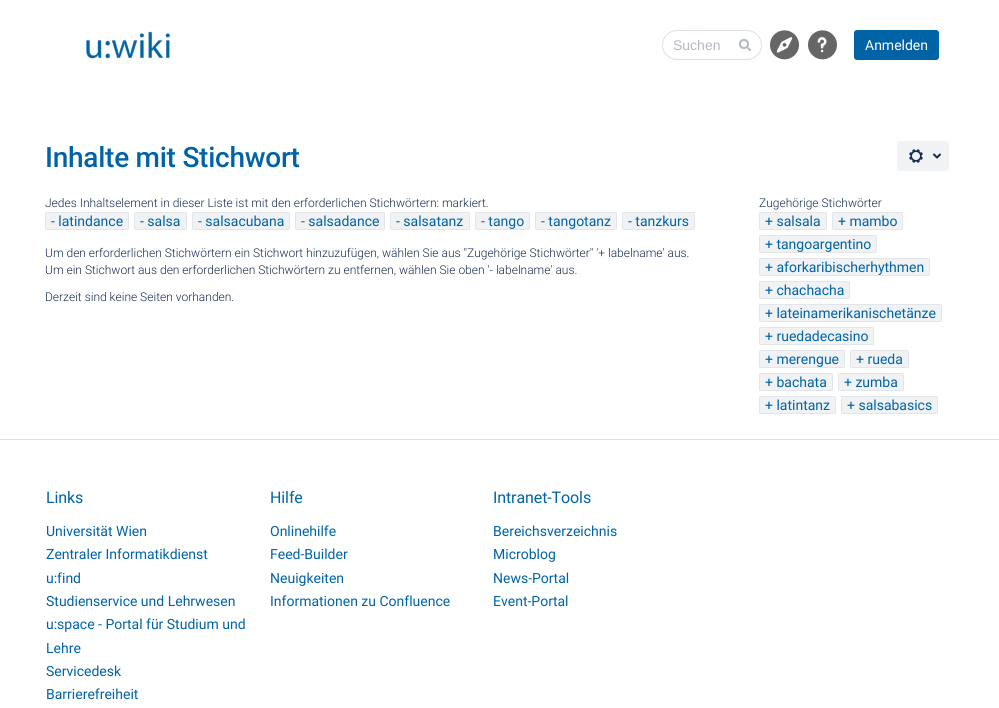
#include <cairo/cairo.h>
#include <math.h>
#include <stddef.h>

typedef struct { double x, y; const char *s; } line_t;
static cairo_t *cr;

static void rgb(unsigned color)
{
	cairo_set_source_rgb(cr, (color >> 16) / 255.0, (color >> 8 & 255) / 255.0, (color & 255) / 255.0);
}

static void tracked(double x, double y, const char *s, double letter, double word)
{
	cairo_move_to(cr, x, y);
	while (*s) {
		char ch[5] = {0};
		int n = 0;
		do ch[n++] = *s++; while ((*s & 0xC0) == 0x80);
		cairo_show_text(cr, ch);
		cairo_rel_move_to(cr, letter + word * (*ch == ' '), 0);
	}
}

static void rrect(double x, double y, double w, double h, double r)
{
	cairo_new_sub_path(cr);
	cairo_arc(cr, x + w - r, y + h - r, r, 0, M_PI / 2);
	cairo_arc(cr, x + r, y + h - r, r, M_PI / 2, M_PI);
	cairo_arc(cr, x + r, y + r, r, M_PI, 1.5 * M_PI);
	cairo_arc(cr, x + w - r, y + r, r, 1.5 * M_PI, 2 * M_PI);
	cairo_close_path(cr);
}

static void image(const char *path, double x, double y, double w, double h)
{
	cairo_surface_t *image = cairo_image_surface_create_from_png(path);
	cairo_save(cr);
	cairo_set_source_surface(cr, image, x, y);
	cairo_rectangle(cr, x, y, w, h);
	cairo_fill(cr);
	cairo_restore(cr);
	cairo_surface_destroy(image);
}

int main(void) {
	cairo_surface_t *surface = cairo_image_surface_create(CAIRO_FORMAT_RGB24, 999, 708);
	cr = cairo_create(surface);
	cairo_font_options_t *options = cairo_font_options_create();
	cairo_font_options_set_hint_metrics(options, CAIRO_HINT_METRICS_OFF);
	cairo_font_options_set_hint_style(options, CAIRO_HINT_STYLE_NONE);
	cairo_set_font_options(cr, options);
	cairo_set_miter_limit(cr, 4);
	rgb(0xffffff);
	cairo_paint(cr);
	image("img/1.png", 86, 31, 84, 28);
	rrect(662.5, 30.5, 99, 29, 14.5);
	rgb(0xdde0e5);
	cairo_set_line_width(cr, 1);
	cairo_stroke(cr);
	image("img/2.png", 739, 39, 12, 12);
	image("img/3.png", 770, 30, 29, 30);
	image("img/4.png", 808, 30, 29, 30);
	rgb(0x0063a6);
	rrect(854, 30, 85, 30, 3);
	cairo_fill(cr);
	rgb(0xf0f2f4);
	rrect(897, 141, 52, 30, 3);
	cairo_fill(cr);
	image("img/5.png", 909, 149, 14, 14);
	image("img/6.png", 933, 153, 8, 6);
	rrect(45, 212, 84, 18, 3);
	cairo_fill(cr);
	cairo_rectangle(cr, 45.5, 212.5, 83, 17);
	cairo_set_source_rgba(cr, 0.035, 0.118, 0.259, 0.06);
	cairo_stroke(cr);
	rgb(0xf0f2f4);
	rrect(134, 212, 53, 18, 3);
	cairo_fill(cr);
	cairo_rectangle(cr, 134.5, 212.5, 52, 17);
	cairo_set_source_rgba(cr, 0.035, 0.118, 0.259, 0.06);
	cairo_stroke(cr);
	rgb(0xf0f2f4);
	rrect(192, 212, 98, 18, 3);
	cairo_fill(cr);
	cairo_rectangle(cr, 192.5, 212.5, 97, 17);
	cairo_set_source_rgba(cr, 0.035, 0.118, 0.259, 0.06);
	cairo_stroke(cr);
	rgb(0xf0f2f4);
	rrect(295, 212, 90, 18, 3);
	cairo_fill(cr);
	cairo_rectangle(cr, 295.5, 212.5, 89, 17);
	cairo_set_source_rgba(cr, 0.035, 0.118, 0.259, 0.06);
	cairo_stroke(cr);
	rgb(0xf0f2f4);
	rrect(390, 212, 80, 18, 3);
	cairo_fill(cr);
	cairo_rectangle(cr, 390.5, 212.5, 79, 17);
	cairo_set_source_rgba(cr, 0.035, 0.118, 0.259, 0.06);
	cairo_stroke(cr);
	rgb(0xf0f2f4);
	rrect(475, 212, 55, 18, 3);
	cairo_fill(cr);
	cairo_rectangle(cr, 475.5, 212.5, 54, 17);
	cairo_set_source_rgba(cr, 0.035, 0.118, 0.259, 0.06);
	cairo_stroke(cr);
	rgb(0xf0f2f4);
	rrect(535, 212, 82, 18, 3);
	cairo_fill(cr);
	cairo_rectangle(cr, 535.5, 212.5, 81, 17);
	cairo_set_source_rgba(cr, 0.035, 0.118, 0.259, 0.06);
	cairo_stroke(cr);
	rgb(0xf0f2f4);
	rrect(622, 212, 73, 18, 3);
	cairo_fill(cr);
	cairo_rectangle(cr, 622.5, 212.5, 72, 17);
	cairo_set_source_rgba(cr, 0.035, 0.118, 0.259, 0.06);
	cairo_stroke(cr);
	rgb(0xf0f2f4);
	rrect(759, 212, 68, 18, 3);
	cairo_fill(cr);
	cairo_rectangle(cr, 759.5, 212.5, 67, 17);
	cairo_set_source_rgba(cr, 0.035, 0.118, 0.259, 0.06);
	cairo_stroke(cr);
	rgb(0xf0f2f4);
	rrect(832, 212, 71, 18, 3);
	cairo_fill(cr);
	cairo_rectangle(cr, 832.5, 212.5, 70, 17);
	cairo_set_source_rgba(cr, 0.035, 0.118, 0.259, 0.06);
	cairo_stroke(cr);
	rgb(0xf0f2f4);
	rrect(759, 235, 118, 18, 3);
	cairo_fill(cr);
	cairo_rectangle(cr, 759.5, 235.5, 117, 17);
	cairo_set_source_rgba(cr, 0.035, 0.118, 0.259, 0.06);
	cairo_stroke(cr);
	rgb(0xf0f2f4);
	rrect(759, 258, 171, 18, 3);
	cairo_fill(cr);
	cairo_rectangle(cr, 759.5, 258.5, 170, 17);
	cairo_set_source_rgba(cr, 0.035, 0.118, 0.259, 0.06);
	cairo_stroke(cr);
	rgb(0xf0f2f4);
	rrect(759, 281, 91, 18, 3);
	cairo_fill(cr);
	cairo_rectangle(cr, 759.5, 281.5, 90, 17);
	cairo_set_source_rgba(cr, 0.035, 0.118, 0.259, 0.06);
	cairo_stroke(cr);
	rgb(0xf0f2f4);
	rrect(759, 304, 183, 18, 3);
	cairo_fill(cr);
	cairo_rectangle(cr, 759.5, 304.5, 182, 17);
	cairo_set_source_rgba(cr, 0.035, 0.118, 0.259, 0.06);
	cairo_stroke(cr);
	rgb(0xf0f2f4);
	rrect(759, 327, 115, 18, 3);
	cairo_fill(cr);
	cairo_rectangle(cr, 759.5, 327.5, 114, 17);
	cairo_set_source_rgba(cr, 0.035, 0.118, 0.259, 0.06);
	cairo_stroke(cr);
	rgb(0xf0f2f4);
	rrect(759, 350, 86, 18, 3);
	cairo_fill(cr);
	cairo_rectangle(cr, 759.5, 350.5, 85, 17);
	cairo_set_source_rgba(cr, 0.035, 0.118, 0.259, 0.06);
	cairo_stroke(cr);
	rgb(0xf0f2f4);
	rrect(850, 350, 59, 18, 3);
	cairo_fill(cr);
	cairo_rectangle(cr, 850.5, 350.5, 58, 17);
	cairo_set_source_rgba(cr, 0.035, 0.118, 0.259, 0.06);
	cairo_stroke(cr);
	rgb(0xf0f2f4);
	rrect(759, 373, 74, 18, 3);
	cairo_fill(cr);
	cairo_rectangle(cr, 759.5, 373.5, 73, 17);
	cairo_set_source_rgba(cr, 0.035, 0.118, 0.259, 0.06);
	cairo_stroke(cr);
	rgb(0xf0f2f4);
	rrect(838, 373, 66, 18, 3);
	cairo_fill(cr);
	cairo_rectangle(cr, 838.5, 373.5, 65, 17);
	cairo_set_source_rgba(cr, 0.035, 0.118, 0.259, 0.06);
	cairo_stroke(cr);
	rgb(0xf0f2f4);
	rrect(759, 396, 77, 18, 3);
	cairo_fill(cr);
	cairo_rectangle(cr, 759.5, 396.5, 76, 17);
	cairo_set_source_rgba(cr, 0.035, 0.118, 0.259, 0.06);
	cairo_stroke(cr);
	rgb(0xf0f2f4);
	rrect(841, 396, 97, 18, 3);
	cairo_fill(cr);
	cairo_rectangle(cr, 841.5, 396.5, 96, 17);
	cairo_set_source_rgba(cr, 0.035, 0.118, 0.259, 0.06);
	cairo_stroke(cr);
	rgb(0xdde0e5);
	cairo_rectangle(cr, 0, 439, 999, 1);
	cairo_fill(cr);
	cairo_select_font_face(cr, "Liberation Sans", CAIRO_FONT_SLANT_NORMAL, CAIRO_FONT_WEIGHT_NORMAL);
	cairo_set_font_size(cr, 14);
	rgb(0xb3b9c4);
	cairo_move_to(cr, 673, 50);
	cairo_show_text(cr, "Suchen");
	cairo_select_font_face(cr, "Roboto", CAIRO_FONT_SLANT_NORMAL, CAIRO_FONT_WEIGHT_NORMAL);
	rgb(0xffffff);
	cairo_move_to(cr, 865, 50);
	cairo_show_text(cr, "Anmelden");
	cairo_select_font_face(cr, "Roboto Medium", CAIRO_FONT_SLANT_NORMAL, CAIRO_FONT_WEIGHT_NORMAL);
	cairo_set_font_size(cr, 28);
	rgb(0x0063a6);
	tracked(45, 167, "Inhalte mit Stichwort", -0.25, 0);
	cairo_select_font_face(cr, "Roboto Light", CAIRO_FONT_SLANT_NORMAL, CAIRO_FONT_WEIGHT_NORMAL);
	cairo_set_font_size(cr, 12);
	rgb(0x172b4d);
	cairo_move_to(cr, 45, 207);
	cairo_show_text(cr, "Jedes Inhaltselement in dieser Liste ist mit den erforderlichen Stichwörtern: markiert.");
	cairo_select_font_face(cr, "Roboto", CAIRO_FONT_SLANT_NORMAL, CAIRO_FONT_WEIGHT_NORMAL);
	cairo_set_font_size(cr, 14);
	rgb(0x0063a6);
	{
		static const line_t items[] = {
			{51, 226, "- latindance"},
			{140, 226, "- salsa"},
			{198, 226, "- salsacubana"},
			{301, 226, "- salsadance"},
			{396, 226, "- salsatanz"},
			{481, 226, "- tango"},
			{541, 226, "- tangotanz"},
			{628, 226, "- tanzkurs"},
		};
		for (size_t i = 0; i < sizeof items / sizeof *items; i++) {
			cairo_move_to(cr, items[i].x, items[i].y);
			cairo_show_text(cr, items[i].s);
		}
	}
	cairo_select_font_face(cr, "Roboto Light", CAIRO_FONT_SLANT_NORMAL, CAIRO_FONT_WEIGHT_NORMAL);
	cairo_set_font_size(cr, 12);
	rgb(0x172b4d);
	{
		static const line_t items[] = {
			{45, 257, "Um den erforderlichen Stichwörtern ein Stichwort hinzuzufügen, wählen Sie aus \"Zugehörige Stichwörter\" '+ labelname' aus."},
			{45, 274, "Um ein Stichwort aus den erforderlichen Stichwörtern zu entfernen, wählen Sie oben '- labelname' aus."},
			{45, 301, "Derzeit sind keine Seiten vorhanden."},
			{759, 207, "Zugehörige Stichwörter"},
		};
		for (size_t i = 0; i < sizeof items / sizeof *items; i++) {
			cairo_move_to(cr, items[i].x, items[i].y);
			cairo_show_text(cr, items[i].s);
		}
	}
	cairo_select_font_face(cr, "Roboto", CAIRO_FONT_SLANT_NORMAL, CAIRO_FONT_WEIGHT_NORMAL);
	cairo_set_font_size(cr, 14);
	rgb(0x0063a6);
	{
		static const line_t items[] = {
			{765, 226, "+ salsala"},
			{838, 226, "+ mambo"},
			{765, 249, "+ tangoargentino"},
			{765, 272, "+ aforkaribischerhythmen"},
			{765, 295, "+ chachacha"},
			{765, 318, "+ lateinamerikanischetänze"},
			{765, 341, "+ ruedadecasino"},
			{765, 364, "+ merengue"},
			{856, 364, "+ rueda"},
			{765, 387, "+ bachata"},
			{844, 387, "+ zumba"},
			{765, 410, "+ latintanz"},
			{847, 410, "+ salsabasics"},
		};
		for (size_t i = 0; i < sizeof items / sizeof *items; i++) {
			cairo_move_to(cr, items[i].x, items[i].y);
			cairo_show_text(cr, items[i].s);
		}
	}
	cairo_set_font_size(cr, 16);
	tracked(46, 503, "Links", -0.1, 0);
	cairo_set_font_size(cr, 14);
	{
		static const line_t items[] = {
			{46, 536, "Universität Wien"},
			{46, 559, "Zentraler Informatikdienst"},
			{46, 583, "u:find"},
			{46, 606, "Studienservice und Lehrwesen"},
			{46, 629, "u:space - Portal für Studium und"},
			{46, 653, "Lehre"},
			{46, 676, "Servicedesk"},
			{46, 699, "Barrierefreiheit"},
		};
		for (size_t i = 0; i < sizeof items / sizeof *items; i++) {
			cairo_move_to(cr, items[i].x, items[i].y);
			cairo_show_text(cr, items[i].s);
		}
	}
	cairo_set_font_size(cr, 16);
	tracked(270, 503, "Hilfe", -0.1, 0);
	cairo_set_font_size(cr, 14);
	{
		static const line_t items[] = {
			{270, 536, "Onlinehilfe"},
			{270, 559, "Feed-Builder"},
			{270, 583, "Neuigkeiten"},
			{270, 606, "Informationen zu Confluence"},
		};
		for (size_t i = 0; i < sizeof items / sizeof *items; i++) {
			cairo_move_to(cr, items[i].x, items[i].y);
			cairo_show_text(cr, items[i].s);
		}
	}
	cairo_set_font_size(cr, 16);
	tracked(493, 503, "Intranet-Tools", -0.1, 0);
	cairo_set_font_size(cr, 14);
	{
		static const line_t items[] = {
			{493, 536, "Bereichsverzeichnis"},
			{493, 559, "Microblog"},
			{493, 583, "News-Portal"},
			{493, 606, "Event-Portal"},
		};
		for (size_t i = 0; i < sizeof items / sizeof *items; i++) {
			cairo_move_to(cr, items[i].x, items[i].y);
			cairo_show_text(cr, items[i].s);
		}
	}
	cairo_surface_write_to_png(surface, "page.png");
	cairo_font_options_destroy(options);
	cairo_destroy(cr);
	cairo_surface_destroy(surface);
	return 0;
}
